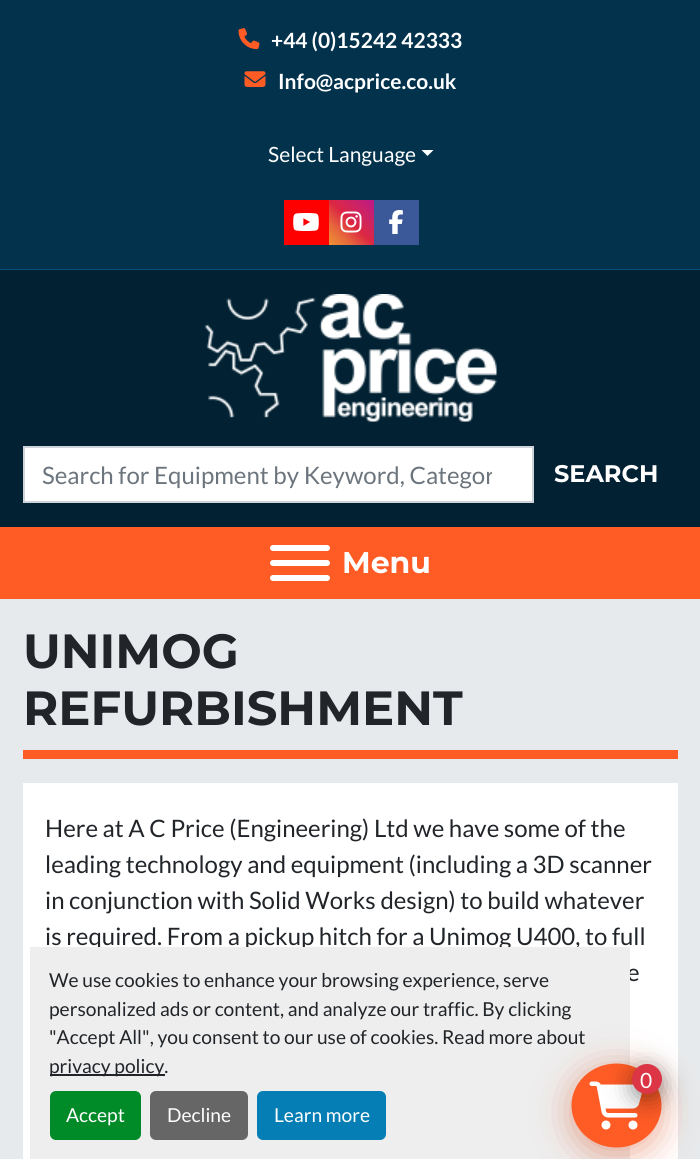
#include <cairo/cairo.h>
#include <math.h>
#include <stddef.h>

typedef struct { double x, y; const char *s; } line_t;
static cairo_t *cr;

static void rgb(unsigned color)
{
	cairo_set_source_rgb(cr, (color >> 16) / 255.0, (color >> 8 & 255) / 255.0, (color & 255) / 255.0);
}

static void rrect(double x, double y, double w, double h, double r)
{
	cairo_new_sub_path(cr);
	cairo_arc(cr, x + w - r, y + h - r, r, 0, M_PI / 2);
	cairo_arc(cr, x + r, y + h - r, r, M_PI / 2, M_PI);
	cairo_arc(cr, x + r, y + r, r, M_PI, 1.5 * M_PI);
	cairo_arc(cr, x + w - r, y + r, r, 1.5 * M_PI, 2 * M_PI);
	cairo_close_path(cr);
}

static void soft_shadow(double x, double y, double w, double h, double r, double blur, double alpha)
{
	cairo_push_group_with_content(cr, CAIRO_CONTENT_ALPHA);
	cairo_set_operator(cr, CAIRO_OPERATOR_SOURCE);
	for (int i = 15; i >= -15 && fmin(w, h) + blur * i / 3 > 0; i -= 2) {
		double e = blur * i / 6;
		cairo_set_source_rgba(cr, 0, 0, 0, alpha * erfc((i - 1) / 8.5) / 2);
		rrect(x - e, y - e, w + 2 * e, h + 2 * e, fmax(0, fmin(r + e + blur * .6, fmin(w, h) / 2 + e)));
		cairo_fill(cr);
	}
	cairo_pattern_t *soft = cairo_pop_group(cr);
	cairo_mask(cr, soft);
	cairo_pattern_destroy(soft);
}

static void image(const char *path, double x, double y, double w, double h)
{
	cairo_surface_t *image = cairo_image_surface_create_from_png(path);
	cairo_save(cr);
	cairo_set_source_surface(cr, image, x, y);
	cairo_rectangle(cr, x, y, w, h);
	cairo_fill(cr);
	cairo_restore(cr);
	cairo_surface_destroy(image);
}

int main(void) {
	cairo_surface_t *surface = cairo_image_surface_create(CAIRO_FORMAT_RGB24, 700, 1159);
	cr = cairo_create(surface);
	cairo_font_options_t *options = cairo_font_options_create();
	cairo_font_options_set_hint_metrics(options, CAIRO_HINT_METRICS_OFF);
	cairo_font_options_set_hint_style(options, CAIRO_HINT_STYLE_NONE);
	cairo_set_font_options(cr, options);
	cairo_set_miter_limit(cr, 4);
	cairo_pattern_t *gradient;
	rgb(0xe7eaec);
	cairo_paint(cr);
	rgb(0x03324c);
	cairo_rectangle(cr, 0, 0, 700, 269);
	cairo_fill(cr);
	rgb(0x05537d);
	cairo_rectangle(cr, 0, 269, 700, 1);
	cairo_fill(cr);
	image("img/1.png", 238, 28, 22, 22);
	image("img/2.png", 244, 71, 22, 16);
	rgb(0xffffff);
	cairo_new_path(cr);
	cairo_move_to(cr, 421.5, 150);
	cairo_line_to(cr, 433.5, 150);
	cairo_line_to(cr, 427.5, 156);
	cairo_close_path(cr);
	cairo_fill(cr);
	rgb(0xff0000);
	cairo_rectangle(cr, 284, 200, 45, 45);
	cairo_fill(cr);
	image("img/3.png", 293, 213, 26, 18);
	gradient = cairo_pattern_create_linear(329, 245, 374, 200);
	cairo_pattern_add_color_stop_rgba(gradient, 0, 0.941, 0.58, 0.2, 1);
	cairo_pattern_add_color_stop_rgba(gradient, 0.25, 0.902, 0.408, 0.235, 1);
	cairo_pattern_add_color_stop_rgba(gradient, 0.5, 0.863, 0.153, 0.263, 1);
	cairo_pattern_add_color_stop_rgba(gradient, 0.75, 0.8, 0.137, 0.4, 1);
	cairo_pattern_add_color_stop_rgba(gradient, 1, 0.737, 0.094, 0.533, 1);
	cairo_set_source(cr, gradient);
	cairo_pattern_destroy(gradient);
	cairo_rectangle(cr, 329, 200, 45, 45);
	cairo_fill(cr);
	image("img/4.png", 340, 211, 22, 22);
	rgb(0x3b5999);
	cairo_rectangle(cr, 374, 200, 45, 45);
	cairo_fill(cr);
	image("img/5.png", 389, 210, 14, 24);
	rgb(0x022233);
	cairo_rectangle(cr, 0, 270, 700, 257);
	cairo_fill(cr);
	image("img/6.png", 205, 294, 292, 128);
	rgb(0xffffff);
	cairo_rectangle(cr, 24, 447, 509, 55);
	cairo_fill_preserve(cr);
	rgb(0xced4da);
	cairo_stroke(cr);
	rgb(0xff5b25);
	cairo_rectangle(cr, 0, 527, 700, 72);
	cairo_fill(cr);
	rgb(0xffffff);
	rrect(270, 560, 60, 6, 3);
	cairo_fill(cr);
	rrect(270, 545, 60, 6, 3);
	cairo_fill(cr);
	rrect(270, 575, 60, 6, 3);
	cairo_fill(cr);
	rgb(0xff5b25);
	cairo_rectangle(cr, 23, 750, 655, 9);
	cairo_fill(cr);
	rgb(0xffffff);
	cairo_rectangle(cr, 23, 783, 655, 376);
	cairo_fill(cr);
	cairo_select_font_face(cr, "Lato", CAIRO_FONT_SLANT_NORMAL, CAIRO_FONT_WEIGHT_BOLD);
	cairo_set_font_size(cr, 21);
	cairo_move_to(cr, 271, 48);
	cairo_show_text(cr, "+44 (0)15242 42333");
	cairo_move_to(cr, 278, 89);
	cairo_show_text(cr, "Info@acprice.co.uk");
	cairo_select_font_face(cr, "Lato", CAIRO_FONT_SLANT_NORMAL, CAIRO_FONT_WEIGHT_NORMAL);
	cairo_move_to(cr, 268, 162);
	cairo_show_text(cr, "Select Language");
	cairo_save(cr);
	cairo_rectangle(cr, 42, 461, 450, 28);
	cairo_clip(cr);
	cairo_set_font_size(cr, 24);
	rgb(0x6c757d);
	cairo_move_to(cr, 42, 484);
	cairo_show_text(cr, "Search for Equipment by Keyword, Categor");
	cairo_restore(cr);
	cairo_select_font_face(cr, "Montserrat Thin", CAIRO_FONT_SLANT_NORMAL, CAIRO_FONT_WEIGHT_NORMAL);
	cairo_set_font_size(cr, 24);
	cairo_move_to(cr, 554, 482);
	cairo_show_text(cr, "SEARCH");
	cairo_set_font_size(cr, 30);
	cairo_move_to(cr, 342, 573);
	cairo_show_text(cr, "Menu");
	cairo_set_font_size(cr, 48);
	rgb(0x212529);
	cairo_move_to(cr, 23, 668);
	cairo_show_text(cr, "UNIMOG");
	cairo_move_to(cr, 23, 725);
	cairo_show_text(cr, "REFURBISHMENT");
	cairo_select_font_face(cr, "Lato", CAIRO_FONT_SLANT_NORMAL, CAIRO_FONT_WEIGHT_NORMAL);
	cairo_set_font_size(cr, 24);
	{
		static const line_t items[] = {
			{45, 837, "Here at A C Price (Engineering) Ltd we have some of the"},
			{45, 873, "leading technology and equipment (including a 3D scanner"},
			{45, 909, "in conjunction with Solid Works design) to build whatever"},
			{45, 945, "is required. From a pickup hitch for a Unimog U400, to full"},
			{627, 981, "e"},
		};
		for (size_t i = 0; i < sizeof items / sizeof *items; i++) {
			cairo_move_to(cr, items[i].x, items[i].y);
			cairo_show_text(cr, items[i].s);
		}
	}
	rgb(0xeeeeee);
	cairo_rectangle(cr, 30, 947, 600, 212);
	cairo_fill(cr);
	rgb(0xd83500);
	soft_shadow(572, 1070, 90, 84, 42, 18, 0.4);
	rgb(0xff5b25);
	cairo_new_path(cr);
	cairo_move_to(cr, 616.5, 1063.5);
	cairo_curve_to(cr, 641.5, 1063.5, 661.5, 1082.5, 661.5, 1105.5);
	cairo_curve_to(cr, 661.5, 1128.5, 641.5, 1147.5, 616.5, 1147.5);
	cairo_curve_to(cr, 591.5, 1147.5, 571.5, 1128.5, 571.5, 1105.5);
	cairo_curve_to(cr, 571.5, 1082.5, 591.5, 1063.5, 616.5, 1063.5);
	cairo_close_path(cr);
	cairo_fill(cr);
	image("img/7.png", 589, 1081, 53, 49);
	rgb(0x000000);
	soft_shadow(632, 1070, 30, 30, 15, 12, 0.4);
	rgb(0xdc3545);
	cairo_arc(cr, 647, 1079, 15, 0, 2 * M_PI);
	cairo_fill(cr);
	cairo_set_font_size(cr, 21);
	rgb(0xffffff);
	cairo_move_to(cr, 640, 1088);
	cairo_show_text(cr, "0");
	cairo_set_font_size(cr, 19.2);
	rgb(0x212529);
	{
		static const line_t items[] = {
			{49, 987, "We use cookies to enhance your browsing experience, serve"},
			{49, 1016, "personalized ads or content, and analyze our traffic. By clicking"},
			{49, 1044, "\"Accept All\", you consent to our use of cookies. Read more about"},
		};
		for (size_t i = 0; i < sizeof items / sizeof *items; i++) {
			cairo_move_to(cr, items[i].x, items[i].y);
			cairo_show_text(cr, items[i].s);
		}
	}
	cairo_rectangle(cr, 50, 1074, 115, 2);
	cairo_fill(cr);
	cairo_move_to(cr, 49, 1073);
	cairo_show_text(cr, "privacy policy.");
	rgb(0x008a28);
	rrect(50, 1091, 91, 49, 6);
	cairo_fill(cr);
	rgb(0xffffff);
	cairo_move_to(cr, 66, 1122);
	cairo_show_text(cr, "Accept");
	rgb(0x666666);
	rrect(150, 1091, 98, 49, 6);
	cairo_fill(cr);
	rgb(0xffffff);
	cairo_move_to(cr, 167, 1122);
	cairo_show_text(cr, "Decline");
	rgb(0x057eb6);
	rrect(257, 1091, 129, 49, 6);
	cairo_fill(cr);
	rgb(0xffffff);
	cairo_move_to(cr, 274, 1122);
	cairo_show_text(cr, "Learn more");
	cairo_surface_write_to_png(surface, "page.png");
	cairo_font_options_destroy(options);
	cairo_destroy(cr);
	cairo_surface_destroy(surface);
	return 0;
}
